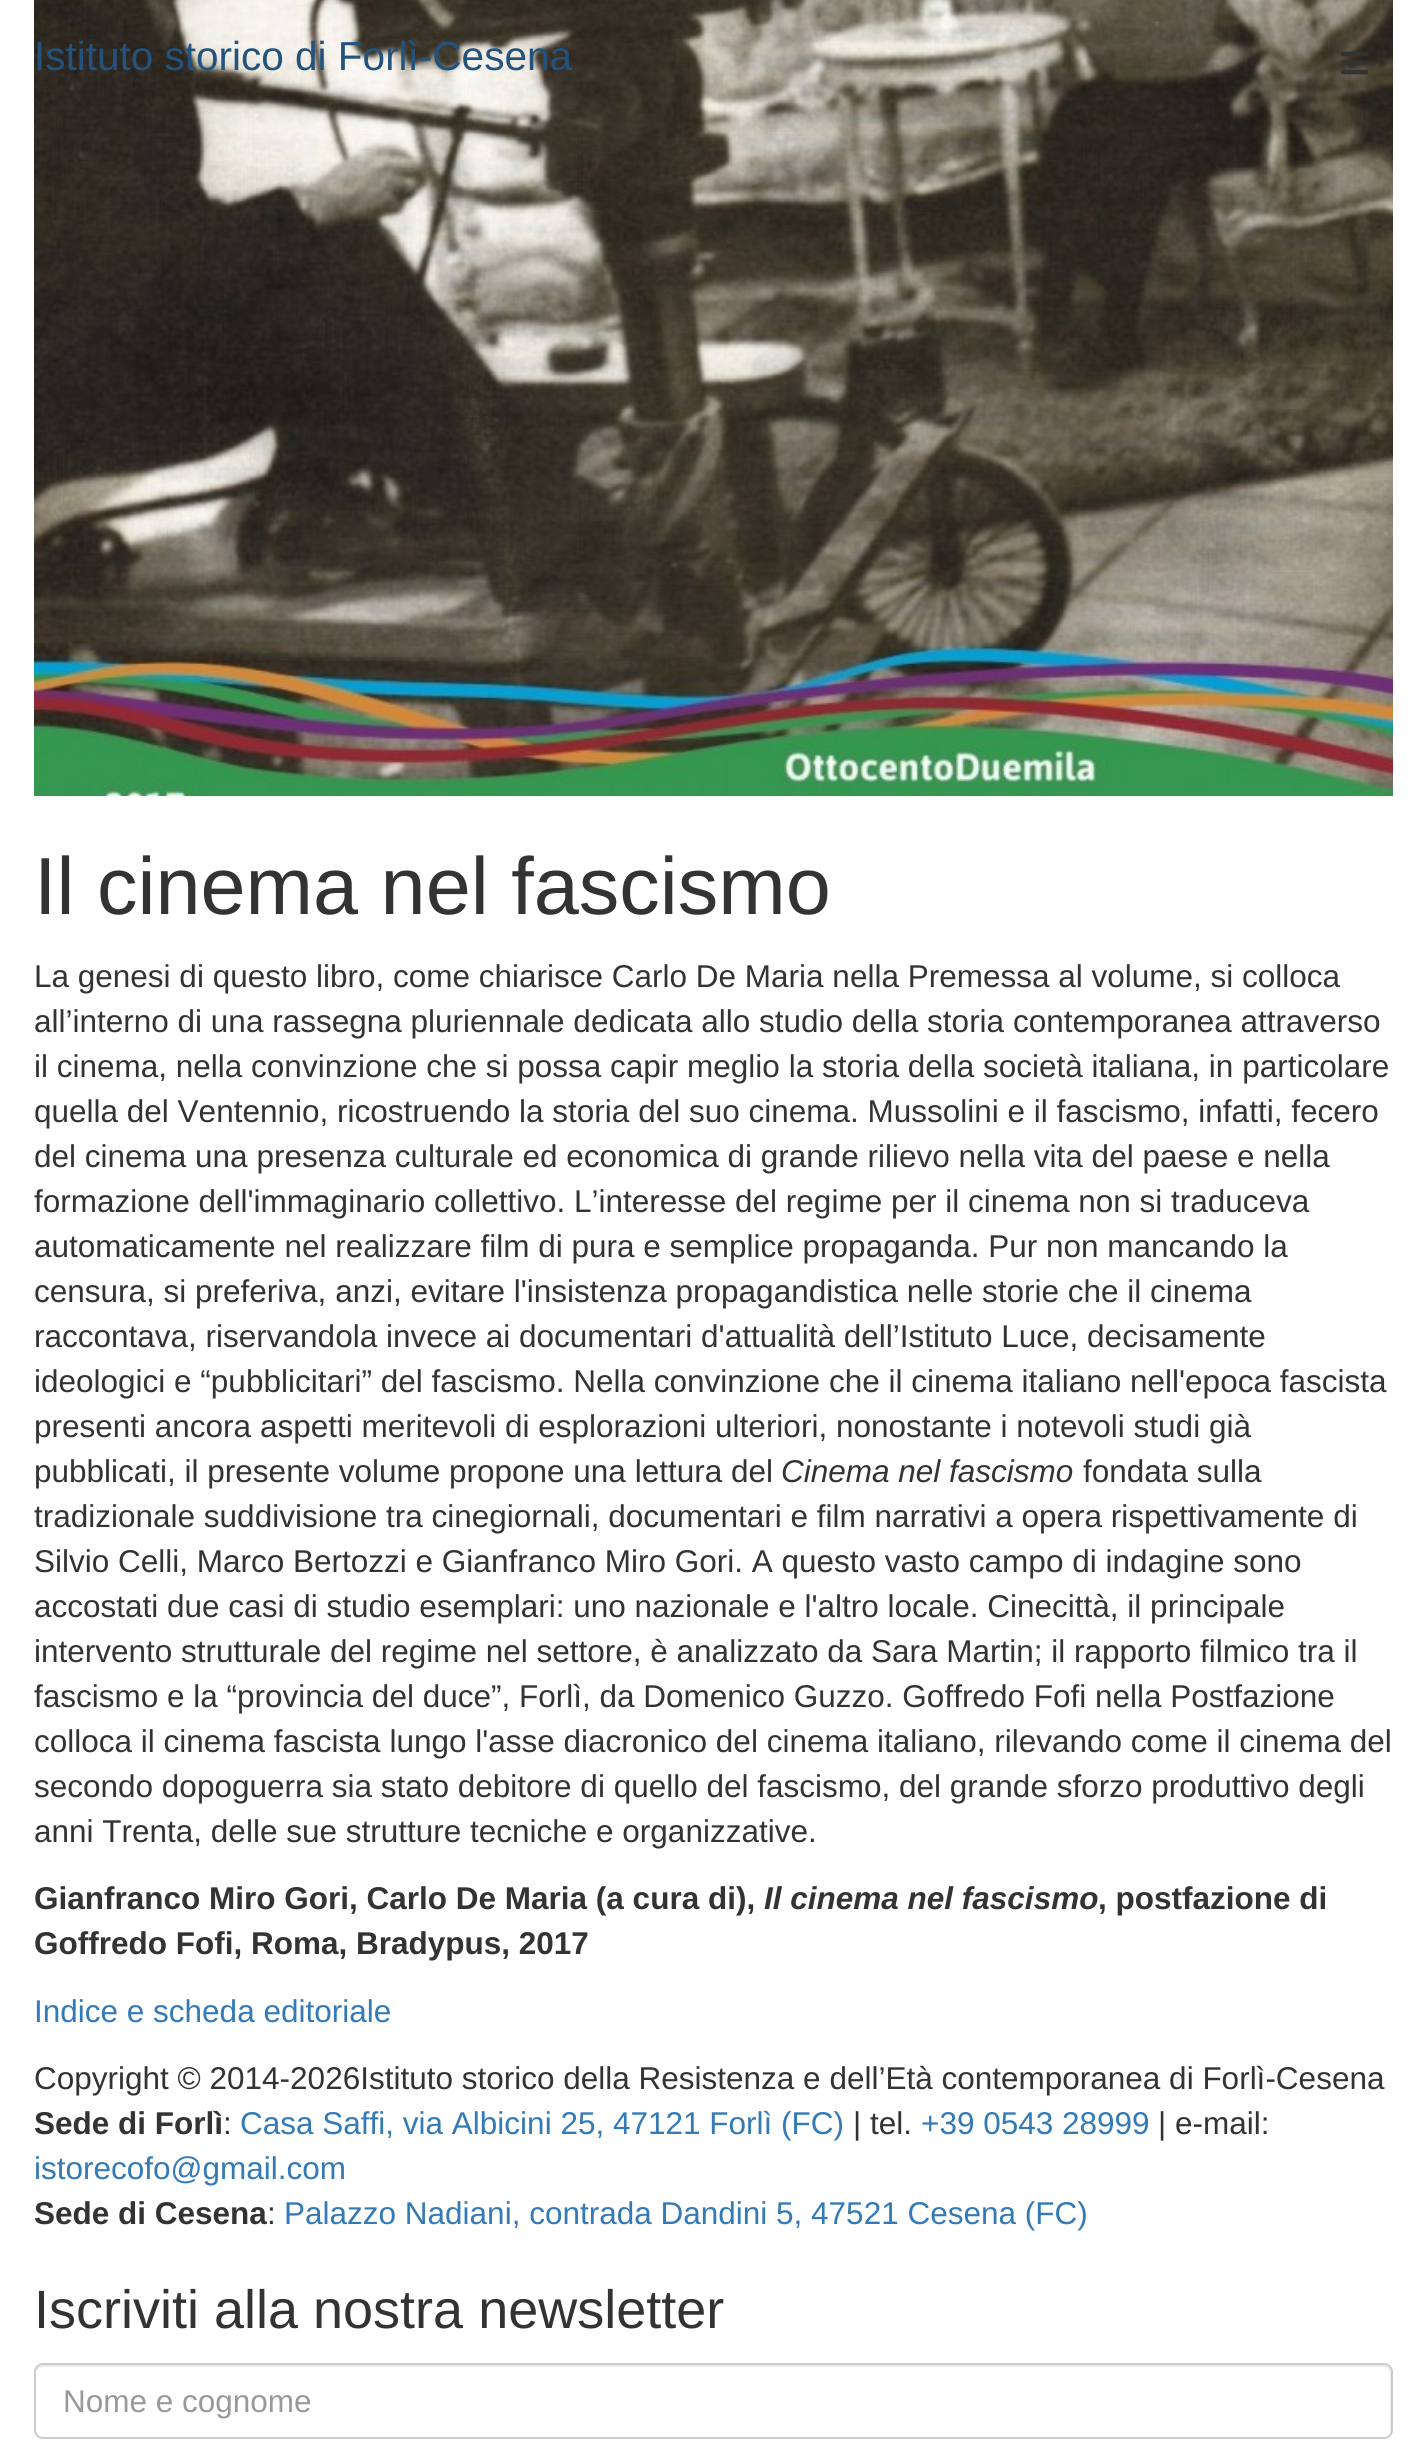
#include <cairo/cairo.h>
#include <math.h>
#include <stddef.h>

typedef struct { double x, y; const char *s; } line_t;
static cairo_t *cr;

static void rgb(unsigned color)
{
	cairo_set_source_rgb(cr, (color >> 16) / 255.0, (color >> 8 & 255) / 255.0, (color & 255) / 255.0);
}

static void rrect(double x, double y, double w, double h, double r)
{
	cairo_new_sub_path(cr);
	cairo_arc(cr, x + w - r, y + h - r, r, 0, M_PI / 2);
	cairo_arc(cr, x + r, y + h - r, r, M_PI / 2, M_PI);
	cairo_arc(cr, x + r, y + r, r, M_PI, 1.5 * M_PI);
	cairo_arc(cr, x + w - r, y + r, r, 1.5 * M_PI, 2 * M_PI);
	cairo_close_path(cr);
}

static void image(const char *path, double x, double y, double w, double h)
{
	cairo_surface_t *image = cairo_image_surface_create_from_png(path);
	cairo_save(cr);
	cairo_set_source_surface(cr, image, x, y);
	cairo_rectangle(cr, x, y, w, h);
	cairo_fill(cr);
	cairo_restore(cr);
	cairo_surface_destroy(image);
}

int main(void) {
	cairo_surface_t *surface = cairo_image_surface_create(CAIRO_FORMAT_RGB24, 1425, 2450);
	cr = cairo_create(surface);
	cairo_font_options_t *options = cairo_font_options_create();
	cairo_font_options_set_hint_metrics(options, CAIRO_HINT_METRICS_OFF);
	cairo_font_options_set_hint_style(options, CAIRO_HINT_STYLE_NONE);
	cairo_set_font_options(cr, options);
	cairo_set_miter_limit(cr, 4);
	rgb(0xffffff);
	cairo_paint(cr);
	image("img/2.png", 34, 0, 1359, 796);
	image("img/1.png", 1341, 51, 27, 24);
	rgb(0xececec);
	cairo_new_path(cr);
	cairo_move_to(cr, 43, 2367);
	cairo_line_to(cr, 1384, 2367);
	cairo_curve_to(cr, 1387, 2367, 1390, 2370, 1390, 2374);
	cairo_line_to(cr, 1390, 2434);
	cairo_curve_to(cr, 1391, 2433, 1391, 2431, 1391, 2430);
	cairo_line_to(cr, 1391, 2372);
	cairo_curve_to(cr, 1391, 2368, 1388, 2365, 1384, 2365);
	cairo_line_to(cr, 43, 2365);
	cairo_curve_to(cr, 39, 2365, 36, 2368, 36, 2372);
	cairo_line_to(cr, 36, 2374);
	cairo_curve_to(cr, 36, 2370, 39, 2367, 43, 2367);
	cairo_close_path(cr);
	cairo_fill(cr);
	rrect(35, 2364, 1357, 74, 8);
	rgb(0xcccccc);
	cairo_stroke(cr);
	cairo_select_font_face(cr, "Liberation Sans", CAIRO_FONT_SLANT_NORMAL, CAIRO_FONT_WEIGHT_NORMAL);
	cairo_set_font_size(cr, 40.5);
	rgb(0x23527c);
	cairo_move_to(cr, 34, 70);
	cairo_show_text(cr, "Istituto storico di Forlì-Cesena");
	cairo_set_font_size(cr, 81);
	rgb(0x333333);
	cairo_move_to(cr, 34, 914);
	cairo_show_text(cr, "Il cinema nel fascismo");
	cairo_set_font_size(cr, 31.5);
	{
		static const line_t items[] = {
			{34, 987, "La genesi di questo libro, come chiarisce Carlo De Maria nella Premessa al volume, si colloca"},
			{34, 1032, "all’interno di una rassegna pluriennale dedicata allo studio della storia contemporanea attraverso"},
			{34, 1077, "il cinema, nella convinzione che si possa capir meglio la storia della società italiana, in particolare"},
			{34, 1122, "quella del Ventennio, ricostruendo la storia del suo cinema. Mussolini e il fascismo, infatti, fecero"},
			{34, 1167, "del cinema una presenza culturale ed economica di grande rilievo nella vita del paese e nella"},
			{34, 1212, "formazione dell'immaginario collettivo. L’interesse del regime per il cinema non si traduceva"},
			{34, 1257, "automaticamente nel realizzare film di pura e semplice propaganda. Pur non mancando la"},
			{34, 1302, "censura, si preferiva, anzi, evitare l'insistenza propagandistica nelle storie che il cinema"},
			{34, 1347, "raccontava, riservandola invece ai documentari d'attualità dell’Istituto Luce, decisamente"},
			{34, 1392, "ideologici e “pubblicitari” del fascismo. Nella convinzione che il cinema italiano nell'epoca fascista"},
			{34, 1437, "presenti ancora aspetti meritevoli di esplorazioni ulteriori, nonostante i notevoli studi già"},
			{34, 1482, "pubblicati, il presente volume propone una lettura del"},
		};
		for (size_t i = 0; i < sizeof items / sizeof *items; i++) {
			cairo_move_to(cr, items[i].x, items[i].y);
			cairo_show_text(cr, items[i].s);
		}
	}
	cairo_select_font_face(cr, "Liberation Sans", CAIRO_FONT_SLANT_ITALIC, CAIRO_FONT_WEIGHT_NORMAL);
	cairo_move_to(cr, 781, 1482);
	cairo_show_text(cr, "Cinema nel fascismo");
	cairo_select_font_face(cr, "Liberation Sans", CAIRO_FONT_SLANT_NORMAL, CAIRO_FONT_WEIGHT_NORMAL);
	{
		static const line_t items[] = {
			{1083, 1482, "fondata sulla"},
			{34, 1527, "tradizionale suddivisione tra cinegiornali, documentari e film narrativi a opera rispettivamente di"},
			{34, 1572, "Silvio Celli, Marco Bertozzi e Gianfranco Miro Gori. A questo vasto campo di indagine sono"},
			{34, 1617, "accostati due casi di studio esemplari: uno nazionale e l'altro locale. Cinecittà, il principale"},
			{34, 1662, "intervento strutturale del regime nel settore, è analizzato da Sara Martin; il rapporto filmico tra il"},
			{34, 1707, "fascismo e la “provincia del duce”, Forlì, da Domenico Guzzo. Goffredo Fofi nella Postfazione"},
			{34, 1752, "colloca il cinema fascista lungo l'asse diacronico del cinema italiano, rilevando come il cinema del"},
			{34, 1797, "secondo dopoguerra sia stato debitore di quello del fascismo, del grande sforzo produttivo degli"},
			{34, 1842, "anni Trenta, delle sue strutture tecniche e organizzative."},
		};
		for (size_t i = 0; i < sizeof items / sizeof *items; i++) {
			cairo_move_to(cr, items[i].x, items[i].y);
			cairo_show_text(cr, items[i].s);
		}
	}
	cairo_select_font_face(cr, "Liberation Sans", CAIRO_FONT_SLANT_NORMAL, CAIRO_FONT_WEIGHT_BOLD);
	cairo_move_to(cr, 34, 1909);
	cairo_show_text(cr, "Gianfranco Miro Gori, Carlo De Maria (a cura di),");
	cairo_select_font_face(cr, "Liberation Sans", CAIRO_FONT_SLANT_ITALIC, CAIRO_FONT_WEIGHT_BOLD);
	cairo_move_to(cr, 764, 1909);
	cairo_show_text(cr, "Il cinema nel fascismo");
	cairo_select_font_face(cr, "Liberation Sans", CAIRO_FONT_SLANT_NORMAL, CAIRO_FONT_WEIGHT_BOLD);
	cairo_move_to(cr, 1098, 1909);
	cairo_show_text(cr, ", postfazione di");
	cairo_move_to(cr, 34, 1954);
	cairo_show_text(cr, "Goffredo Fofi, Roma, Bradypus, 2017");
	cairo_select_font_face(cr, "Liberation Sans", CAIRO_FONT_SLANT_NORMAL, CAIRO_FONT_WEIGHT_NORMAL);
	rgb(0x337ab7);
	cairo_move_to(cr, 34, 2022);
	cairo_show_text(cr, "Indice e scheda editoriale");
	rgb(0x333333);
	cairo_move_to(cr, 34, 2089);
	cairo_show_text(cr, "Copyright © 2014-2026Istituto storico della Resistenza e dell’Età contemporanea di Forlì-Cesena");
	cairo_select_font_face(cr, "Liberation Sans", CAIRO_FONT_SLANT_NORMAL, CAIRO_FONT_WEIGHT_BOLD);
	cairo_move_to(cr, 34, 2134);
	cairo_show_text(cr, "Sede di Forlì");
	cairo_select_font_face(cr, "Liberation Sans", CAIRO_FONT_SLANT_NORMAL, CAIRO_FONT_WEIGHT_NORMAL);
	cairo_move_to(cr, 223, 2134);
	cairo_show_text(cr, ":");
	rgb(0x337ab7);
	cairo_move_to(cr, 240, 2134);
	cairo_show_text(cr, "Casa Saffi, via Albicini 25, 47121 Forlì (FC)");
	rgb(0x333333);
	cairo_move_to(cr, 853, 2134);
	cairo_show_text(cr, "| tel.");
	rgb(0x337ab7);
	cairo_move_to(cr, 921, 2134);
	cairo_show_text(cr, "+39 0543 28999");
	rgb(0x333333);
	cairo_move_to(cr, 1158, 2134);
	cairo_show_text(cr, "| e-mail:");
	rgb(0x337ab7);
	cairo_move_to(cr, 34, 2179);
	cairo_show_text(cr, "istorecofo@gmail.com");
	cairo_select_font_face(cr, "Liberation Sans", CAIRO_FONT_SLANT_NORMAL, CAIRO_FONT_WEIGHT_BOLD);
	rgb(0x333333);
	cairo_move_to(cr, 34, 2224);
	cairo_show_text(cr, "Sede di Cesena");
	cairo_select_font_face(cr, "Liberation Sans", CAIRO_FONT_SLANT_NORMAL, CAIRO_FONT_WEIGHT_NORMAL);
	cairo_move_to(cr, 267, 2224);
	cairo_show_text(cr, ":");
	rgb(0x337ab7);
	cairo_move_to(cr, 284, 2224);
	cairo_show_text(cr, "Palazzo Nadiani, contrada Dandini 5, 47521 Cesena (FC)");
	cairo_set_font_size(cr, 54);
	rgb(0x333333);
	cairo_move_to(cr, 34, 2328);
	cairo_show_text(cr, "Iscriviti alla nostra newsletter");
	cairo_set_font_size(cr, 31.5);
	rgb(0x999999);
	cairo_move_to(cr, 63, 2412);
	cairo_show_text(cr, "Nome e cognome");
	cairo_surface_write_to_png(surface, "page.png");
	cairo_font_options_destroy(options);
	cairo_destroy(cr);
	cairo_surface_destroy(surface);
	return 0;
}
